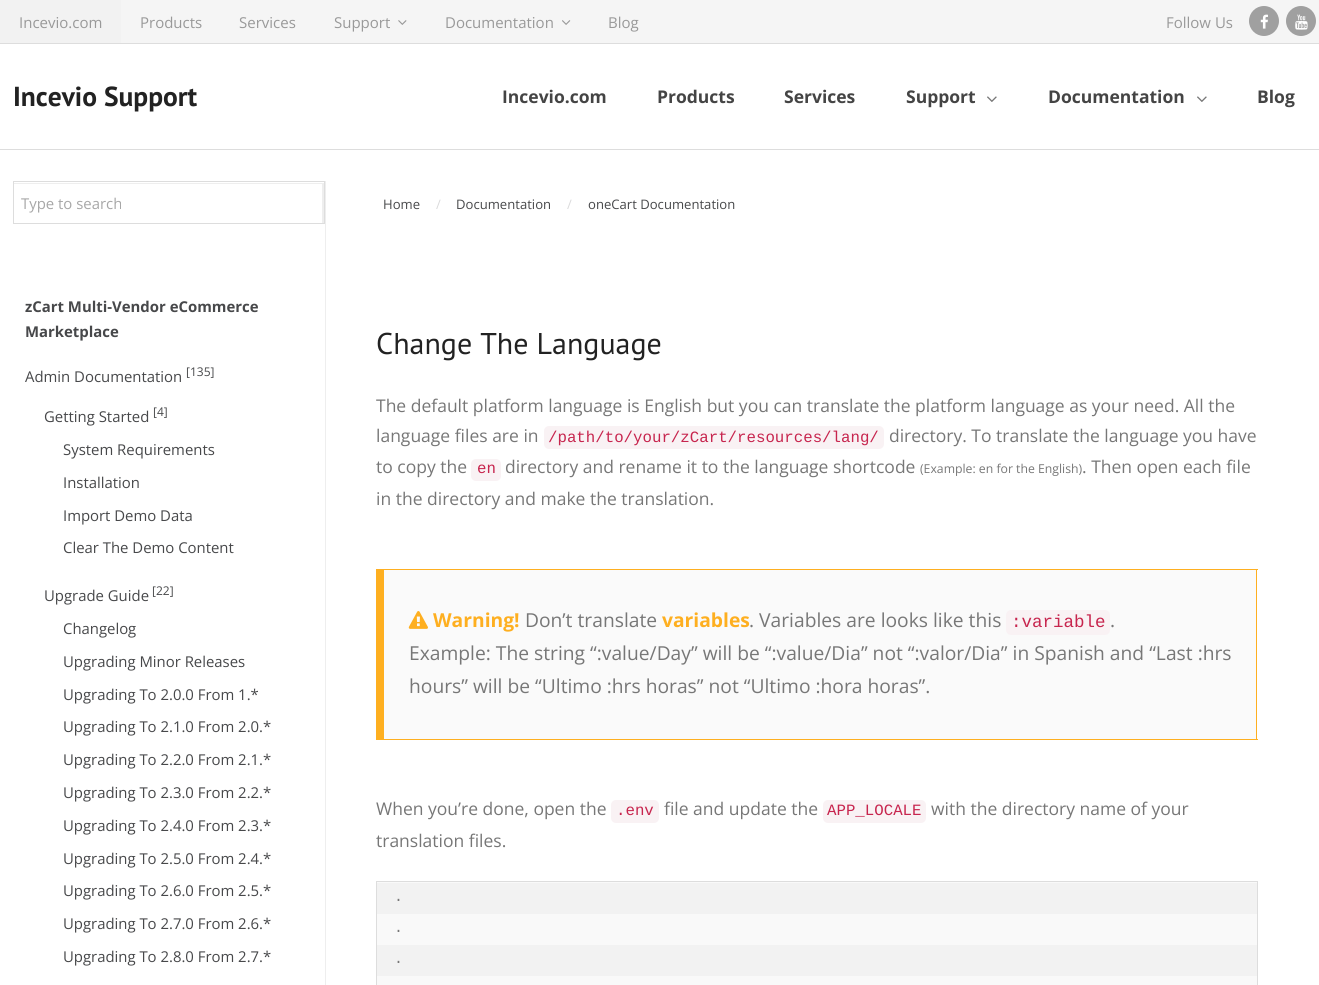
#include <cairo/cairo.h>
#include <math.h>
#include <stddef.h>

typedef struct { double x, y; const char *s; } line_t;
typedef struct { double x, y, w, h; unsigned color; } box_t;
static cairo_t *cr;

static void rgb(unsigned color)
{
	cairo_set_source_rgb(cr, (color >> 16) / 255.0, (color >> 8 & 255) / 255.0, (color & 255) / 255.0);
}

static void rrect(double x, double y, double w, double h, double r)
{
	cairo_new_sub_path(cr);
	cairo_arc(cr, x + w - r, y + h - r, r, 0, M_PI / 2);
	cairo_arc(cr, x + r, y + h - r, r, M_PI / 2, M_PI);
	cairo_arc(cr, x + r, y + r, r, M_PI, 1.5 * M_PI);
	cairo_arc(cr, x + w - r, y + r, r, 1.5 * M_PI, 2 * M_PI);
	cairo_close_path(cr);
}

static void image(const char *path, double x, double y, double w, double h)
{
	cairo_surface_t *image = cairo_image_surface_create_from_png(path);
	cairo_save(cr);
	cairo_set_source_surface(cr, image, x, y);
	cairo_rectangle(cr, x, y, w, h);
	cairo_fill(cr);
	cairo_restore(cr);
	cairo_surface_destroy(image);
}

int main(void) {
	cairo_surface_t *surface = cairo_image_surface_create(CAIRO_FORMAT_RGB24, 1319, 985);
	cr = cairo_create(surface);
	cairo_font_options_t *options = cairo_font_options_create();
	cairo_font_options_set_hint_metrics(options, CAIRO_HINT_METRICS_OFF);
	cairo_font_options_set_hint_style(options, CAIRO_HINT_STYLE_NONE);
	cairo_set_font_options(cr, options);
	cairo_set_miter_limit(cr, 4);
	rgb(0xffffff);
	cairo_paint(cr);
	{
		static const box_t items[] = {
			{0, 149, 1319, 1, 0xdddddd},
			{121, 0, 1198, 43, 0xf5f5f5},
			{0, 43, 1319, 1, 0xdddddd},
			{0, 0, 121, 43, 0xf2f2f2},
		};
		for (size_t i = 0; i < sizeof items / sizeof *items; i++) {
			rgb(items[i].color);
			cairo_rectangle(cr, items[i].x, items[i].y, items[i].w, items[i].h);
			cairo_fill(cr);
		}
	}
	image("img/1.png", 398, 20, 9, 5);
	image("img/2.png", 562, 20, 9, 5);
	rgb(0xa0a0a0);
	cairo_arc(cr, 1264, 21, 15, 0, 2 * M_PI);
	cairo_fill(cr);
	image("img/3.png", 1260, 14, 8, 15);
	cairo_arc(cr, 1301, 21, 15, 0, 2 * M_PI);
	cairo_fill(cr);
	image("img/4.png", 1295, 14, 13, 16);
	image("img/5.png", 987, 96, 10, 6);
	image("img/5.png", 1197, 96, 10, 6);
	rgb(0xeeeeee);
	cairo_rectangle(cr, 325, 181, 1, 804);
	cairo_fill(cr);
	cairo_save(cr);
	cairo_rectangle(cr, 14, 183, 310, 40);
	cairo_clip(cr);
	cairo_set_fill_rule(cr, CAIRO_FILL_RULE_EVEN_ODD);
	cairo_new_path(cr);
	cairo_move_to(cr, -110, 59);
	cairo_line_to(cr, 448, 59);
	cairo_line_to(cr, 448, 346);
	cairo_line_to(cr, -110, 346);
	cairo_close_path(cr);
	cairo_move_to(cr, 12, 184);
	cairo_line_to(cr, 322, 184);
	cairo_line_to(cr, 322, 224);
	cairo_line_to(cr, 12, 224);
	cairo_close_path(cr);
	cairo_fill(cr);
	cairo_restore(cr);
	cairo_rectangle(cr, 13.5, 181.5, 311, 42);
	rgb(0xdddddd);
	cairo_set_line_width(cr, 1);
	cairo_stroke(cr);
	rgb(0xf9f2f4);
	rrect(544, 426, 340, 23, 5);
	cairo_fill(cr);
	rrect(471, 459, 30, 22, 5);
	cairo_fill(cr);
	{
		static const box_t items[] = {
			{384, 570, 872, 169, 0xfafafa},
			{376, 569, 882, 1, 0xfeaf20},
			{1256, 569, 1, 171, 0xfeaf20},
			{376, 739, 882, 1, 0xfeaf20},
			{376, 569, 8, 171, 0xfeaf20},
		};
		for (size_t i = 0; i < sizeof items / sizeof *items; i++) {
			rgb(items[i].color);
			cairo_rectangle(cr, items[i].x, items[i].y, items[i].w, items[i].h);
			cairo_fill(cr);
		}
	}
	image("img/6.png", 408, 611, 20, 18);
	rgb(0xf9f2f4);
	rrect(1006, 610, 104, 25, 5);
	cairo_fill(cr);
	rrect(611, 800, 48, 23, 5);
	cairo_fill(cr);
	rrect(823, 800, 103, 23, 5);
	cairo_fill(cr);
	{
		static const box_t items[] = {
			{376, 882, 882, 1, 0xf9f9f9},
			{377, 883, 880, 31, 0xf2f2f2},
			{377, 914, 880, 31, 0xf9f9f9},
			{377, 945, 880, 31, 0xf2f2f2},
			{377, 976, 880, 9, 0xf9f9f9},
		};
		for (size_t i = 0; i < sizeof items / sizeof *items; i++) {
			rgb(items[i].color);
			cairo_rectangle(cr, items[i].x, items[i].y, items[i].w, items[i].h);
			cairo_fill(cr);
		}
	}
	cairo_rectangle(cr, 376.5, 881.5, 881, 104);
	rgb(0xdddddd);
	cairo_stroke(cr);
	cairo_select_font_face(cr, "Open Sans", CAIRO_FONT_SLANT_NORMAL, CAIRO_FONT_WEIGHT_NORMAL);
	cairo_set_font_size(cr, 15);
	rgb(0x999999);
	{
		static const line_t items[] = {
			{19, 28, "Incevio.com"},
			{140, 28, "Products"},
			{239, 28, "Services"},
			{334, 28, "Support"},
			{445, 28, "Documentation"},
			{608, 28, "Blog"},
			{1166, 28, "Follow Us"},
		};
		for (size_t i = 0; i < sizeof items / sizeof *items; i++) {
			cairo_move_to(cr, items[i].x, items[i].y);
			cairo_show_text(cr, items[i].s);
		}
	}
	cairo_select_font_face(cr, "PT Sans", CAIRO_FONT_SLANT_NORMAL, CAIRO_FONT_WEIGHT_BOLD);
	cairo_set_font_size(cr, 27.5);
	rgb(0x222222);
	cairo_move_to(cr, 13, 106);
	cairo_show_text(cr, "Incevio Support");
	cairo_select_font_face(cr, "Open Sans", CAIRO_FONT_SLANT_NORMAL, CAIRO_FONT_WEIGHT_BOLD);
	cairo_set_font_size(cr, 17.5);
	rgb(0x444444);
	{
		static const line_t items[] = {
			{502, 103, "Incevio.com"},
			{657, 103, "Products"},
			{784, 103, "Services"},
			{906, 103, "Support"},
			{1048, 103, "Documentation"},
			{1257, 103, "Blog"},
		};
		for (size_t i = 0; i < sizeof items / sizeof *items; i++) {
			cairo_move_to(cr, items[i].x, items[i].y);
			cairo_show_text(cr, items[i].s);
		}
	}
	cairo_select_font_face(cr, "Open Sans", CAIRO_FONT_SLANT_NORMAL, CAIRO_FONT_WEIGHT_NORMAL);
	cairo_set_font_size(cr, 14.9);
	rgb(0xa7a7a7);
	cairo_move_to(cr, 21, 209);
	cairo_show_text(cr, "Type to search");
	cairo_select_font_face(cr, "Open Sans", CAIRO_FONT_SLANT_NORMAL, CAIRO_FONT_WEIGHT_BOLD);
	rgb(0x47484a);
	cairo_move_to(cr, 25, 312);
	cairo_show_text(cr, "zCart Multi-Vendor eCommerce");
	cairo_move_to(cr, 25, 337);
	cairo_show_text(cr, "Marketplace");
	cairo_select_font_face(cr, "Open Sans", CAIRO_FONT_SLANT_NORMAL, CAIRO_FONT_WEIGHT_NORMAL);
	cairo_move_to(cr, 25, 382);
	cairo_show_text(cr, "Admin Documentation");
	cairo_set_font_size(cr, 12);
	cairo_move_to(cr, 186, 376);
	cairo_show_text(cr, "[135]");
	cairo_set_font_size(cr, 14.9);
	cairo_move_to(cr, 44, 422);
	cairo_show_text(cr, "Getting Started");
	cairo_set_font_size(cr, 12);
	cairo_move_to(cr, 153, 416);
	cairo_show_text(cr, "[4]");
	cairo_set_font_size(cr, 14.9);
	{
		static const line_t items[] = {
			{63, 455, "System Requirements"},
			{63, 488, "Installation"},
			{63, 521, "Import Demo Data"},
			{63, 553, "Clear The Demo Content"},
			{44, 601, "Upgrade Guide"},
		};
		for (size_t i = 0; i < sizeof items / sizeof *items; i++) {
			cairo_move_to(cr, items[i].x, items[i].y);
			cairo_show_text(cr, items[i].s);
		}
	}
	cairo_set_font_size(cr, 12);
	cairo_move_to(cr, 152, 595);
	cairo_show_text(cr, "[22]");
	cairo_set_font_size(cr, 14.9);
	{
		static const line_t items[] = {
			{63, 634, "Changelog"},
			{63, 667, "Upgrading Minor Releases"},
			{63, 700, "Upgrading To 2.0.0 From 1.*"},
			{63, 732, "Upgrading To 2.1.0 From 2.0.*"},
			{63, 765, "Upgrading To 2.2.0 From 2.1.*"},
			{63, 798, "Upgrading To 2.3.0 From 2.2.*"},
			{63, 831, "Upgrading To 2.4.0 From 2.3.*"},
			{63, 864, "Upgrading To 2.5.0 From 2.4.*"},
			{63, 896, "Upgrading To 2.6.0 From 2.5.*"},
			{63, 929, "Upgrading To 2.7.0 From 2.6.*"},
			{63, 962, "Upgrading To 2.8.0 From 2.7.*"},
		};
		for (size_t i = 0; i < sizeof items / sizeof *items; i++) {
			cairo_move_to(cr, items[i].x, items[i].y);
			cairo_show_text(cr, items[i].s);
		}
	}
	cairo_set_font_size(cr, 13.1);
	cairo_move_to(cr, 383, 209);
	cairo_show_text(cr, "Home");
	rgb(0xdadadb);
	cairo_move_to(cr, 436, 209);
	cairo_show_text(cr, "/");
	rgb(0x47484a);
	cairo_move_to(cr, 456, 209);
	cairo_show_text(cr, "Documentation");
	rgb(0xdadadb);
	cairo_move_to(cr, 567, 209);
	cairo_show_text(cr, "/");
	rgb(0x47484a);
	cairo_move_to(cr, 588, 209);
	cairo_show_text(cr, "oneCart Documentation");
	cairo_select_font_face(cr, "PT Sans", CAIRO_FONT_SLANT_NORMAL, CAIRO_FONT_WEIGHT_NORMAL);
	cairo_set_font_size(cr, 30);
	rgb(0x222222);
	cairo_move_to(cr, 376, 354);
	cairo_show_text(cr, "Change The Language");
	cairo_select_font_face(cr, "Open Sans", CAIRO_FONT_SLANT_NORMAL, CAIRO_FONT_WEIGHT_NORMAL);
	cairo_set_font_size(cr, 17.5);
	rgb(0x777777);
	cairo_move_to(cr, 376, 412);
	cairo_show_text(cr, "The default platform language is English but you can translate the platform language as your need. All the");
	cairo_move_to(cr, 376, 442);
	cairo_show_text(cr, "language files are in");
	cairo_select_font_face(cr, "Liberation Mono", CAIRO_FONT_SLANT_NORMAL, CAIRO_FONT_WEIGHT_NORMAL);
	cairo_set_font_size(cr, 15.75);
	rgb(0xc7254e);
	cairo_move_to(cr, 548, 442);
	cairo_show_text(cr, "/path/to/your/zCart/resources/lang/");
	cairo_select_font_face(cr, "Open Sans", CAIRO_FONT_SLANT_NORMAL, CAIRO_FONT_WEIGHT_NORMAL);
	cairo_set_font_size(cr, 17.5);
	rgb(0x777777);
	cairo_move_to(cr, 889, 442);
	cairo_show_text(cr, "directory. To translate the language you have");
	cairo_move_to(cr, 376, 473);
	cairo_show_text(cr, "to copy the");
	cairo_select_font_face(cr, "Liberation Mono", CAIRO_FONT_SLANT_NORMAL, CAIRO_FONT_WEIGHT_NORMAL);
	cairo_set_font_size(cr, 15.75);
	rgb(0xc7254e);
	cairo_move_to(cr, 477, 473);
	cairo_show_text(cr, "en");
	cairo_select_font_face(cr, "Open Sans", CAIRO_FONT_SLANT_NORMAL, CAIRO_FONT_WEIGHT_NORMAL);
	cairo_set_font_size(cr, 17.5);
	rgb(0x777777);
	cairo_move_to(cr, 505, 473);
	cairo_show_text(cr, "directory and rename it to the language shortcode");
	cairo_set_font_size(cr, 12.25);
	cairo_move_to(cr, 920, 473);
	cairo_show_text(cr, "(Example: en for the English)");
	cairo_set_font_size(cr, 17.5);
	cairo_move_to(cr, 1082, 473);
	cairo_show_text(cr, ". Then open each file");
	cairo_move_to(cr, 376, 505);
	cairo_show_text(cr, "in the directory and make the translation.");
	cairo_select_font_face(cr, "Open Sans", CAIRO_FONT_SLANT_NORMAL, CAIRO_FONT_WEIGHT_BOLD);
	cairo_set_font_size(cr, 19.25);
	rgb(0xfeaf20);
	cairo_move_to(cr, 433, 627);
	cairo_show_text(cr, "Warning!");
	cairo_select_font_face(cr, "Open Sans", CAIRO_FONT_SLANT_NORMAL, CAIRO_FONT_WEIGHT_NORMAL);
	rgb(0x777777);
	cairo_move_to(cr, 525, 627);
	cairo_show_text(cr, "Don’t translate");
	cairo_select_font_face(cr, "Open Sans", CAIRO_FONT_SLANT_NORMAL, CAIRO_FONT_WEIGHT_BOLD);
	rgb(0xfeaf20);
	cairo_move_to(cr, 662, 627);
	cairo_show_text(cr, "variables");
	cairo_select_font_face(cr, "Open Sans", CAIRO_FONT_SLANT_NORMAL, CAIRO_FONT_WEIGHT_NORMAL);
	rgb(0x777777);
	cairo_move_to(cr, 749, 627);
	cairo_show_text(cr, ". Variables are looks like this");
	cairo_select_font_face(cr, "Liberation Mono", CAIRO_FONT_SLANT_NORMAL, CAIRO_FONT_WEIGHT_NORMAL);
	cairo_set_font_size(cr, 17.5);
	rgb(0xc7254e);
	cairo_move_to(cr, 1011, 627);
	cairo_show_text(cr, ":variable");
	cairo_select_font_face(cr, "Open Sans", CAIRO_FONT_SLANT_NORMAL, CAIRO_FONT_WEIGHT_NORMAL);
	cairo_set_font_size(cr, 19.25);
	rgb(0x777777);
	{
		static const line_t items[] = {
			{1110, 627, "."},
			{409, 660, "Example: The string “:value/Day” will be “:value/Dia” not “:valor/Dia” in Spanish and “Last :hrs"},
			{409, 693, "hours” will be “Ultimo :hrs horas” not “Ultimo :hora horas”."},
		};
		for (size_t i = 0; i < sizeof items / sizeof *items; i++) {
			cairo_move_to(cr, items[i].x, items[i].y);
			cairo_show_text(cr, items[i].s);
		}
	}
	cairo_set_font_size(cr, 17.5);
	cairo_move_to(cr, 376, 815);
	cairo_show_text(cr, "When you’re done, open the");
	cairo_select_font_face(cr, "Liberation Mono", CAIRO_FONT_SLANT_NORMAL, CAIRO_FONT_WEIGHT_NORMAL);
	cairo_set_font_size(cr, 15.75);
	rgb(0xc7254e);
	cairo_move_to(cr, 616, 815);
	cairo_show_text(cr, ".env");
	cairo_select_font_face(cr, "Open Sans", CAIRO_FONT_SLANT_NORMAL, CAIRO_FONT_WEIGHT_NORMAL);
	cairo_set_font_size(cr, 17.5);
	rgb(0x777777);
	cairo_move_to(cr, 664, 815);
	cairo_show_text(cr, "file and update the");
	cairo_select_font_face(cr, "Liberation Mono", CAIRO_FONT_SLANT_NORMAL, CAIRO_FONT_WEIGHT_NORMAL);
	cairo_set_font_size(cr, 15.75);
	rgb(0xc7254e);
	cairo_move_to(cr, 827, 815);
	cairo_show_text(cr, "APP_LOCALE");
	cairo_select_font_face(cr, "Open Sans", CAIRO_FONT_SLANT_NORMAL, CAIRO_FONT_WEIGHT_NORMAL);
	cairo_set_font_size(cr, 17.5);
	rgb(0x777777);
	cairo_move_to(cr, 931, 815);
	cairo_show_text(cr, "with the directory name of your");
	cairo_move_to(cr, 376, 847);
	cairo_show_text(cr, "translation files.");
	cairo_select_font_face(cr, "Liberation Mono", CAIRO_FONT_SLANT_NORMAL, CAIRO_FONT_WEIGHT_NORMAL);
	cairo_set_font_size(cr, 14.9);
	{
		static const line_t items[] = {
			{394, 901, "."},
			{394, 932, "."},
			{394, 963, "."},
		};
		for (size_t i = 0; i < sizeof items / sizeof *items; i++) {
			cairo_move_to(cr, items[i].x, items[i].y);
			cairo_show_text(cr, items[i].s);
		}
	}
	cairo_surface_write_to_png(surface, "page.png");
	cairo_font_options_destroy(options);
	cairo_destroy(cr);
	cairo_surface_destroy(surface);
	return 0;
}
